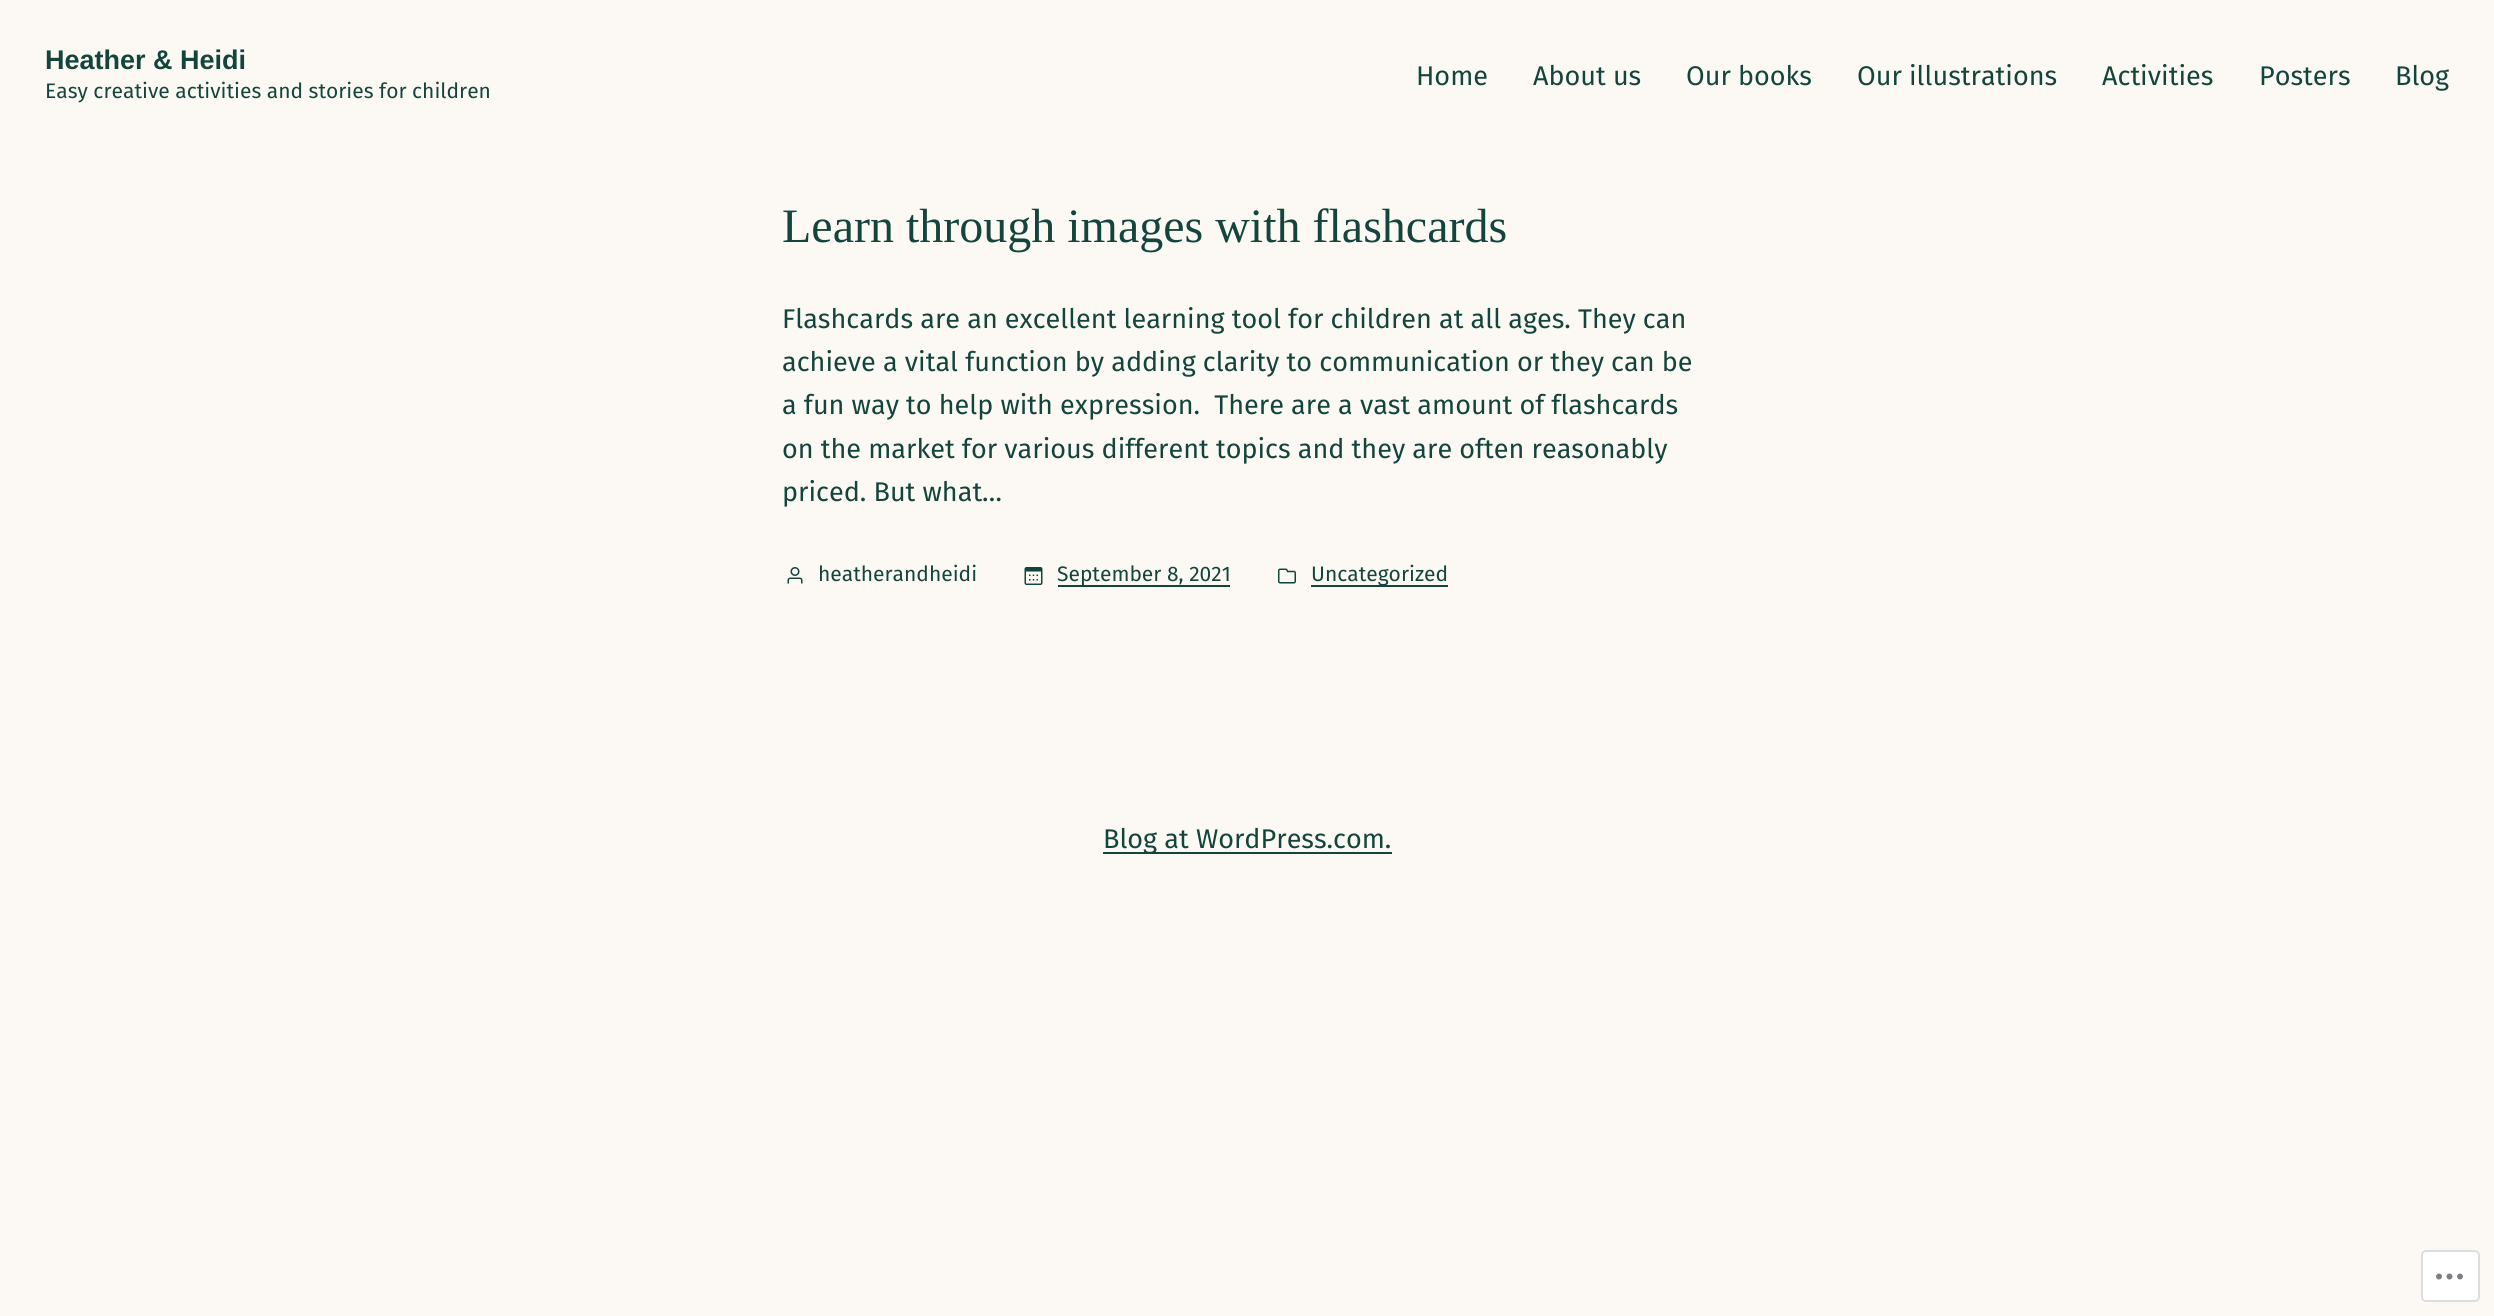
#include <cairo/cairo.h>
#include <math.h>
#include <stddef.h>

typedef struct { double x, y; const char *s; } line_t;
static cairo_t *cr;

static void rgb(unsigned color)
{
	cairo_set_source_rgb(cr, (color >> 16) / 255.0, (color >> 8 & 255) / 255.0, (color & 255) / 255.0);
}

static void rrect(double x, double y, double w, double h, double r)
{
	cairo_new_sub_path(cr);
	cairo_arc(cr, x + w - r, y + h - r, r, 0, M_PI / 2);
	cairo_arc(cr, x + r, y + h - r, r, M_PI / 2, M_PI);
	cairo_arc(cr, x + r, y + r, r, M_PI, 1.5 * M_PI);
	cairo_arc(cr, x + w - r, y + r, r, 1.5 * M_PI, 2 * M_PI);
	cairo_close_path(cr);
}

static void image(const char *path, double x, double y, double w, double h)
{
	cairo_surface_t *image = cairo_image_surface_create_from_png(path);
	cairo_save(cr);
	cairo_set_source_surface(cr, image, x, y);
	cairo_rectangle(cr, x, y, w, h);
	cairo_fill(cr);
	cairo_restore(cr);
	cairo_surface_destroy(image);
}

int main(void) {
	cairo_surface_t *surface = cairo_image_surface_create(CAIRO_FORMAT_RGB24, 2494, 1316);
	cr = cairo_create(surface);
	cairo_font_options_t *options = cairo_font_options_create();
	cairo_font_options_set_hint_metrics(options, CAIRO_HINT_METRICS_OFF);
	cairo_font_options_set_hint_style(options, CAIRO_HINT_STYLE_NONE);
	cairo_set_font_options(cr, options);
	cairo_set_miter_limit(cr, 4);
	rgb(0xfcf9f4);
	cairo_paint(cr);
	image("img/1.png", 787, 567, 16, 17);
	image("img/2.png", 1024, 567, 19, 18);
	rgb(0x14453d);
	cairo_rectangle(cr, 1058, 585, 172, 2);
	cairo_fill(cr);
	image("img/3.png", 1278, 568, 18, 16);
	cairo_rectangle(cr, 1311, 585, 137, 2);
	cairo_fill(cr);
	cairo_rectangle(cr, 1103, 852, 289, 2);
	cairo_fill(cr);
	rgb(0xffffff);
	rrect(2422, 1251, 57, 50, 4);
	cairo_fill_preserve(cr);
	rgb(0xddddde);
	cairo_stroke(cr);
	image("img/4.png", 2436, 1273, 27, 7);
	cairo_select_font_face(cr, "Liberation Sans", CAIRO_FONT_SLANT_NORMAL, CAIRO_FONT_WEIGHT_BOLD);
	cairo_set_font_size(cr, 27);
	rgb(0x14453d);
	cairo_move_to(cr, 45, 69);
	cairo_show_text(cr, "Heather & Heidi");
	cairo_select_font_face(cr, "Fira Sans", CAIRO_FONT_SLANT_NORMAL, CAIRO_FONT_WEIGHT_NORMAL);
	cairo_set_font_size(cr, 21);
	cairo_move_to(cr, 45, 98);
	cairo_show_text(cr, "Easy creative activities and stories for children");
	cairo_set_font_size(cr, 27);
	{
		static const line_t items[] = {
			{1416, 85, "Home"},
			{1533, 85, "About us"},
			{1686, 85, "Our books"},
			{1857, 85, "Our illustrations"},
			{2102, 85, "Activities"},
			{2259, 85, "Posters"},
			{2395, 85, "Blog"},
		};
		for (size_t i = 0; i < sizeof items / sizeof *items; i++) {
			cairo_move_to(cr, items[i].x, items[i].y);
			cairo_show_text(cr, items[i].s);
		}
	}
	cairo_select_font_face(cr, "Liberation Serif", CAIRO_FONT_SLANT_NORMAL, CAIRO_FONT_WEIGHT_NORMAL);
	cairo_set_font_size(cr, 48);
	cairo_move_to(cr, 782, 242);
	cairo_show_text(cr, "Learn through images with flashcards");
	cairo_select_font_face(cr, "Fira Sans", CAIRO_FONT_SLANT_NORMAL, CAIRO_FONT_WEIGHT_NORMAL);
	cairo_set_font_size(cr, 27);
	{
		static const line_t items[] = {
			{782, 328, "Flashcards are an excellent learning tool for children at all ages. They can"},
			{782, 371, "achieve a vital function by adding clarity to communication or they can be"},
			{782, 414, "a fun way to help with expression.  There are a vast amount of flashcards"},
			{782, 458, "on the market for various different topics and they are often reasonably"},
			{782, 501, "priced. But what…"},
		};
		for (size_t i = 0; i < sizeof items / sizeof *items; i++) {
			cairo_move_to(cr, items[i].x, items[i].y);
			cairo_show_text(cr, items[i].s);
		}
	}
	cairo_set_font_size(cr, 21);
	{
		static const line_t items[] = {
			{818, 581, "heatherandheidi"},
			{1057, 581, "September 8, 2021"},
			{1311, 581, "Uncategorized"},
		};
		for (size_t i = 0; i < sizeof items / sizeof *items; i++) {
			cairo_move_to(cr, items[i].x, items[i].y);
			cairo_show_text(cr, items[i].s);
		}
	}
	cairo_set_font_size(cr, 27);
	cairo_move_to(cr, 1103, 848);
	cairo_show_text(cr, "Blog at WordPress.com.");
	cairo_surface_write_to_png(surface, "page.png");
	cairo_font_options_destroy(options);
	cairo_destroy(cr);
	cairo_surface_destroy(surface);
	return 0;
}
